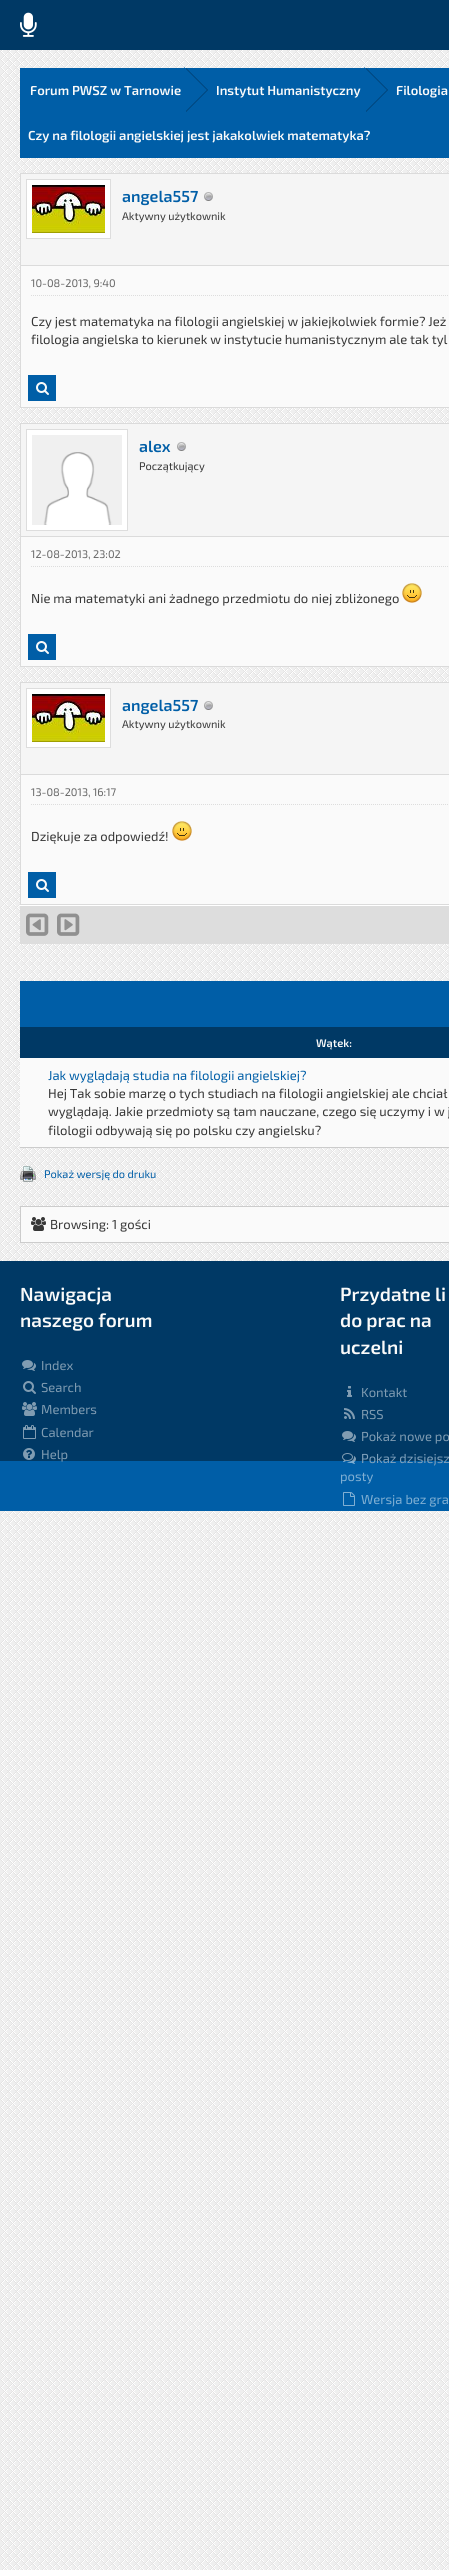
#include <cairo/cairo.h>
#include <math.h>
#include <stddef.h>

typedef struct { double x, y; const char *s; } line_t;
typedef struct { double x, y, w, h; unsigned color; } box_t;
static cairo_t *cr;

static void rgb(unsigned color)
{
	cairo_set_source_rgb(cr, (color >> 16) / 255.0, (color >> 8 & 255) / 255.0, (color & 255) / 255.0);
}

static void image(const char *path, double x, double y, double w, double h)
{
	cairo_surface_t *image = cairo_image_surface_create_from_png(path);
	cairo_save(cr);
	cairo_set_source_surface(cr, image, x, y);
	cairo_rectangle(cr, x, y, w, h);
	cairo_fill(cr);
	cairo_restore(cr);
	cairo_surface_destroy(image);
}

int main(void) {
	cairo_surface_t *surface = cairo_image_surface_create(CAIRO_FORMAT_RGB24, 449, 2570);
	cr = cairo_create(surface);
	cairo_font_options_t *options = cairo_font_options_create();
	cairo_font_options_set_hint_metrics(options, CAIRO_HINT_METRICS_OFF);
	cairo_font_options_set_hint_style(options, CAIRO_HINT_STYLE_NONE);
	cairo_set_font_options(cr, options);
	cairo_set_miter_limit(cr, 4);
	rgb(0xefefef);
	cairo_paint(cr);
	image("img/1.png", 0, 50, 449, 2520);
	rgb(0x003965);
	cairo_rectangle(cr, 0, 0, 449, 50);
	cairo_fill(cr);
	image("img/2.png", 20, 12, 17, 25);
	rgb(0x005ea7);
	cairo_rectangle(cr, 20, 68, 429, 44);
	cairo_fill(cr);
	rgb(0x003c6d);
	cairo_new_path(cr);
	cairo_move_to(cr, 186, 112);
	cairo_line_to(cr, 186, 68);
	cairo_line_to(cr, 208, 90);
	cairo_close_path(cr);
	cairo_fill(cr);
	rgb(0x005ea7);
	cairo_new_path(cr);
	cairo_move_to(cr, 184, 113);
	cairo_line_to(cr, 184, 67);
	cairo_line_to(cr, 207, 90);
	cairo_close_path(cr);
	cairo_fill(cr);
	rgb(0x003c6d);
	cairo_new_path(cr);
	cairo_move_to(cr, 366, 112);
	cairo_line_to(cr, 366, 68);
	cairo_line_to(cr, 388, 90);
	cairo_close_path(cr);
	cairo_fill(cr);
	rgb(0x005ea7);
	cairo_new_path(cr);
	cairo_move_to(cr, 364, 113);
	cairo_line_to(cr, 364, 67);
	cairo_line_to(cr, 387, 90);
	cairo_close_path(cr);
	cairo_fill(cr);
	cairo_rectangle(cr, 20, 112, 429, 46);
	cairo_fill(cr);
	rgb(0xfafafa);
	cairo_rectangle(cr, 21, 266, 428, 141);
	cairo_fill(cr);
	cairo_rectangle(cr, 20.5, 173.5, 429, 234);
	rgb(0xdbdbdb);
	cairo_set_line_width(cr, 1);
	cairo_stroke(cr);
	rgb(0xf5f5f5);
	cairo_rectangle(cr, 21, 174, 428, 91);
	cairo_fill(cr);
	rgb(0xdbdbdb);
	cairo_rectangle(cr, 21, 265, 428, 1);
	cairo_fill(cr);
	rgb(0xffffff);
	cairo_rectangle(cr, 26.5, 179.5, 84, 59);
	cairo_fill_preserve(cr);
	rgb(0xdddddd);
	cairo_stroke(cr);
	image("img/3.png", 32, 185, 73, 48);
	image("img/4.png", 204, 192, 9, 9);
	cairo_new_path(cr);
	cairo_move_to(cr, 31, 295.5);
	cairo_line_to(cr, 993, 295.5);
	cairo_set_dash(cr, (double[]){1, 1}, 2, 0);
	cairo_stroke(cr);
	rgb(0x005ea7);
	cairo_rectangle(cr, 28, 375, 28, 26);
	cairo_fill(cr);
	image("img/5.png", 36, 382, 13, 13);
	rgb(0xfafafa);
	cairo_rectangle(cr, 21, 537, 428, 129);
	cairo_fill(cr);
	cairo_rectangle(cr, 20.5, 423.5, 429, 243);
	rgb(0xdbdbdb);
	cairo_set_dash(cr, NULL, 0, 0);
	cairo_stroke(cr);
	rgb(0xf5f5f5);
	cairo_rectangle(cr, 21, 424, 428, 112);
	cairo_fill(cr);
	rgb(0xdbdbdb);
	cairo_rectangle(cr, 21, 536, 428, 1);
	cairo_fill(cr);
	rgb(0xffffff);
	cairo_rectangle(cr, 26.5, 429.5, 101, 101);
	cairo_fill_preserve(cr);
	rgb(0xdddddd);
	cairo_stroke(cr);
	image("img/6.png", 32, 435, 90, 90);
	image("img/4.png", 177, 442, 9, 9);
	cairo_new_path(cr);
	cairo_move_to(cr, 31, 566.5);
	cairo_line_to(cr, 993, 566.5);
	cairo_set_dash(cr, (double[]){1, 1}, 2, 0);
	cairo_stroke(cr);
	image("img/7.png", 402, 583, 20, 20);
	rgb(0x005ea7);
	cairo_rectangle(cr, 28, 634, 28, 26);
	cairo_fill(cr);
	image("img/5.png", 36, 641, 13, 13);
	rgb(0xfafafa);
	cairo_rectangle(cr, 21, 775, 428, 129);
	cairo_fill(cr);
	cairo_rectangle(cr, 20.5, 682.5, 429, 222);
	rgb(0xdbdbdb);
	cairo_set_dash(cr, NULL, 0, 0);
	cairo_stroke(cr);
	rgb(0xf5f5f5);
	cairo_rectangle(cr, 21, 683, 428, 91);
	cairo_fill(cr);
	rgb(0xdbdbdb);
	cairo_rectangle(cr, 21, 774, 428, 1);
	cairo_fill(cr);
	rgb(0xffffff);
	cairo_rectangle(cr, 26.5, 688.5, 84, 59);
	cairo_fill_preserve(cr);
	rgb(0xdddddd);
	cairo_stroke(cr);
	image("img/3.png", 32, 694, 73, 48);
	image("img/4.png", 204, 701, 9, 9);
	cairo_new_path(cr);
	cairo_move_to(cr, 31, 804.5);
	cairo_line_to(cr, 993, 804.5);
	cairo_set_dash(cr, (double[]){1, 1}, 2, 0);
	cairo_stroke(cr);
	image("img/7.png", 172, 821, 20, 20);
	rgb(0x005ea7);
	cairo_rectangle(cr, 28, 872, 28, 26);
	cairo_fill(cr);
	image("img/5.png", 36, 879, 13, 13);
	rgb(0xdddddd);
	cairo_rectangle(cr, 20, 906, 429, 38);
	cairo_fill(cr);
	rgb(0xffffff);
	cairo_rectangle(cr, 20, 905, 429, 1);
	cairo_fill(cr);
	image("img/8.png", 26, 913, 23, 23);
	image("img/9.png", 57, 913, 23, 23);
	{
		static const box_t items[] = {
			{20, 981, 429, 46, 0x005ea7},
			{20, 1027, 429, 31, 0x003965},
			{20, 1058, 429, 89, 0xfafafa},
			{20, 1147, 429, 1, 0xcccccc},
		};
		for (size_t i = 0; i < sizeof items / sizeof *items; i++) {
			rgb(items[i].color);
			cairo_rectangle(cr, items[i].x, items[i].y, items[i].w, items[i].h);
			cairo_fill(cr);
		}
	}
	image("img/10.png", 20, 1166, 16, 16);
	rgb(0xfafafa);
	cairo_rectangle(cr, 20.5, 1206.5, 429, 36);
	cairo_fill_preserve(cr);
	rgb(0xcccccc);
	cairo_set_dash(cr, NULL, 0, 0);
	cairo_stroke(cr);
	image("img/11.png", 31, 1217, 15, 14);
	rgb(0x003965);
	cairo_rectangle(cr, 0, 1261, 449, 200);
	cairo_fill(cr);
	image("img/12.png", 22, 1360, 14, 11);
	image("img/13.png", 23, 1381, 13, 13);
	image("img/14.png", 22, 1402, 15, 14);
	image("img/15.png", 23, 1425, 13, 14);
	image("img/16.png", 23, 1448, 12, 12);
	image("img/17.png", 347, 1386, 5, 11);
	image("img/18.png", 344, 1408, 11, 11);
	image("img/12.png", 342, 1431, 14, 11);
	rgb(0x005ea7);
	cairo_rectangle(cr, 0, 1461, 449, 50);
	cairo_fill(cr);
	image("img/19.png", 342, 1453, 14, 11);
	image("img/20.png", 343, 1492, 12, 14);
	cairo_select_font_face(cr, "Exo 2 SemiBold", CAIRO_FONT_SLANT_NORMAL, CAIRO_FONT_WEIGHT_NORMAL);
	cairo_set_font_size(cr, 13);
	rgb(0xfafafa);
	{
		static const line_t items[] = {
			{30, 95, "Forum PWSZ w Tarnowie"},
			{216, 95, "Instytut Humanistyczny"},
			{396, 95, "Filologia"},
			{28, 140, "Czy na filologii angielskiej jest jakakolwiek matematyka?"},
		};
		for (size_t i = 0; i < sizeof items / sizeof *items; i++) {
			cairo_move_to(cr, items[i].x, items[i].y);
			cairo_show_text(cr, items[i].s);
		}
	}
	cairo_set_font_size(cr, 16);
	rgb(0x005ea7);
	cairo_move_to(cr, 122, 202);
	cairo_show_text(cr, "angela557");
	cairo_select_font_face(cr, "Exo 2", CAIRO_FONT_SLANT_NORMAL, CAIRO_FONT_WEIGHT_NORMAL);
	cairo_set_font_size(cr, 11);
	rgb(0x363636);
	cairo_move_to(cr, 122, 220);
	cairo_show_text(cr, "Aktywny użytkownik");
	rgb(0x666666);
	cairo_move_to(cr, 31, 287);
	cairo_show_text(cr, "10-08-2013, 9:40");
	cairo_set_font_size(cr, 13);
	rgb(0x363636);
	cairo_move_to(cr, 31, 326);
	cairo_show_text(cr, "Czy jest matematyka na filologii angielskiej w jakiejkolwiek formie? Jeż");
	cairo_move_to(cr, 31, 344);
	cairo_show_text(cr, "filologia angielska to kierunek w instytucie humanistycznym ale tak tyl");
	cairo_select_font_face(cr, "Exo 2 SemiBold", CAIRO_FONT_SLANT_NORMAL, CAIRO_FONT_WEIGHT_NORMAL);
	cairo_set_font_size(cr, 16);
	rgb(0x005ea7);
	cairo_move_to(cr, 139, 452);
	cairo_show_text(cr, "alex");
	cairo_select_font_face(cr, "Exo 2", CAIRO_FONT_SLANT_NORMAL, CAIRO_FONT_WEIGHT_NORMAL);
	cairo_set_font_size(cr, 11);
	rgb(0x363636);
	cairo_move_to(cr, 139, 470);
	cairo_show_text(cr, "Początkujący");
	rgb(0x666666);
	cairo_move_to(cr, 31, 558);
	cairo_show_text(cr, "12-08-2013, 23:02");
	cairo_set_font_size(cr, 13);
	rgb(0x363636);
	cairo_move_to(cr, 31, 603);
	cairo_show_text(cr, "Nie ma matematyki ani żadnego przedmiotu do niej zbliżonego");
	cairo_select_font_face(cr, "Exo 2 SemiBold", CAIRO_FONT_SLANT_NORMAL, CAIRO_FONT_WEIGHT_NORMAL);
	cairo_set_font_size(cr, 16);
	rgb(0x005ea7);
	cairo_move_to(cr, 122, 711);
	cairo_show_text(cr, "angela557");
	cairo_select_font_face(cr, "Exo 2", CAIRO_FONT_SLANT_NORMAL, CAIRO_FONT_WEIGHT_NORMAL);
	cairo_set_font_size(cr, 11);
	rgb(0x363636);
	cairo_move_to(cr, 122, 728);
	cairo_show_text(cr, "Aktywny użytkownik");
	rgb(0x666666);
	cairo_move_to(cr, 31, 796);
	cairo_show_text(cr, "13-08-2013, 16:17");
	cairo_set_font_size(cr, 13);
	rgb(0x363636);
	cairo_move_to(cr, 31, 841);
	cairo_show_text(cr, "Dziękuje za odpowiedź!");
	cairo_select_font_face(cr, "Exo 2 SemiBold", CAIRO_FONT_SLANT_NORMAL, CAIRO_FONT_WEIGHT_NORMAL);
	cairo_set_font_size(cr, 11);
	rgb(0xfafafa);
	cairo_move_to(cr, 316, 1047);
	cairo_show_text(cr, "Wątek:");
	cairo_select_font_face(cr, "Exo 2", CAIRO_FONT_SLANT_NORMAL, CAIRO_FONT_WEIGHT_NORMAL);
	cairo_set_font_size(cr, 13);
	rgb(0x005ea7);
	cairo_move_to(cr, 48, 1080);
	cairo_show_text(cr, "Jak wyglądają studia na filologii angielskiej?");
	rgb(0x363636);
	{
		static const line_t items[] = {
			{48, 1098, "Hej Tak sobie marzę o tych studiach na filologii angielskiej ale chciał"},
			{48, 1116, "wyglądają. Jakie przedmioty są tam nauczane, czego się uczymy i w j"},
			{48, 1135, "filologii odbywają się po polsku czy angielsku?"},
		};
		for (size_t i = 0; i < sizeof items / sizeof *items; i++) {
			cairo_move_to(cr, items[i].x, items[i].y);
			cairo_show_text(cr, items[i].s);
		}
	}
	cairo_set_font_size(cr, 11);
	rgb(0x005ea7);
	cairo_move_to(cr, 44, 1178);
	cairo_show_text(cr, "Pokaż wersję do druku");
	cairo_set_font_size(cr, 13);
	rgb(0x363636);
	cairo_move_to(cr, 50, 1229);
	cairo_show_text(cr, "Browsing: 1 gości");
	cairo_select_font_face(cr, "Exo 2 SemiBold", CAIRO_FONT_SLANT_NORMAL, CAIRO_FONT_WEIGHT_NORMAL);
	cairo_set_font_size(cr, 19);
	rgb(0xfafafa);
	cairo_move_to(cr, 20, 1301);
	cairo_show_text(cr, "Nawigacja");
	cairo_move_to(cr, 20, 1327);
	cairo_show_text(cr, "naszego forum");
	cairo_select_font_face(cr, "Exo 2", CAIRO_FONT_SLANT_NORMAL, CAIRO_FONT_WEIGHT_NORMAL);
	cairo_set_font_size(cr, 13);
	rgb(0x809cb2);
	{
		static const line_t items[] = {
			{41, 1370, "Index"},
			{41, 1392, "Search"},
			{41, 1414, "Members"},
			{41, 1437, "Calendar"},
			{41, 1459, "Help"},
		};
		for (size_t i = 0; i < sizeof items / sizeof *items; i++) {
			cairo_move_to(cr, items[i].x, items[i].y);
			cairo_show_text(cr, items[i].s);
		}
	}
	cairo_select_font_face(cr, "Exo 2 SemiBold", CAIRO_FONT_SLANT_NORMAL, CAIRO_FONT_WEIGHT_NORMAL);
	cairo_set_font_size(cr, 19);
	rgb(0xfafafa);
	{
		static const line_t items[] = {
			{340, 1301, "Przydatne li"},
			{340, 1327, "do prac na"},
			{340, 1354, "uczelni"},
		};
		for (size_t i = 0; i < sizeof items / sizeof *items; i++) {
			cairo_move_to(cr, items[i].x, items[i].y);
			cairo_show_text(cr, items[i].s);
		}
	}
	cairo_select_font_face(cr, "Exo 2", CAIRO_FONT_SLANT_NORMAL, CAIRO_FONT_WEIGHT_NORMAL);
	cairo_set_font_size(cr, 13);
	rgb(0x809cb2);
	{
		static const line_t items[] = {
			{361, 1397, "Kontakt"},
			{361, 1419, "RSS"},
			{361, 1441, "Pokaż nowe po"},
		};
		for (size_t i = 0; i < sizeof items / sizeof *items; i++) {
			cairo_move_to(cr, items[i].x, items[i].y);
			cairo_show_text(cr, items[i].s);
		}
	}
	rgb(0x80a1bc);
	cairo_move_to(cr, 361, 1463);
	cairo_show_text(cr, "Pokaż dzisiejsz");
	rgb(0x80afd3);
	cairo_move_to(cr, 340, 1481);
	cairo_show_text(cr, "posty");
	cairo_move_to(cr, 361, 1504);
	cairo_show_text(cr, "Wersja bez gra");
	cairo_surface_write_to_png(surface, "page.png");
	cairo_font_options_destroy(options);
	cairo_destroy(cr);
	cairo_surface_destroy(surface);
	return 0;
}
